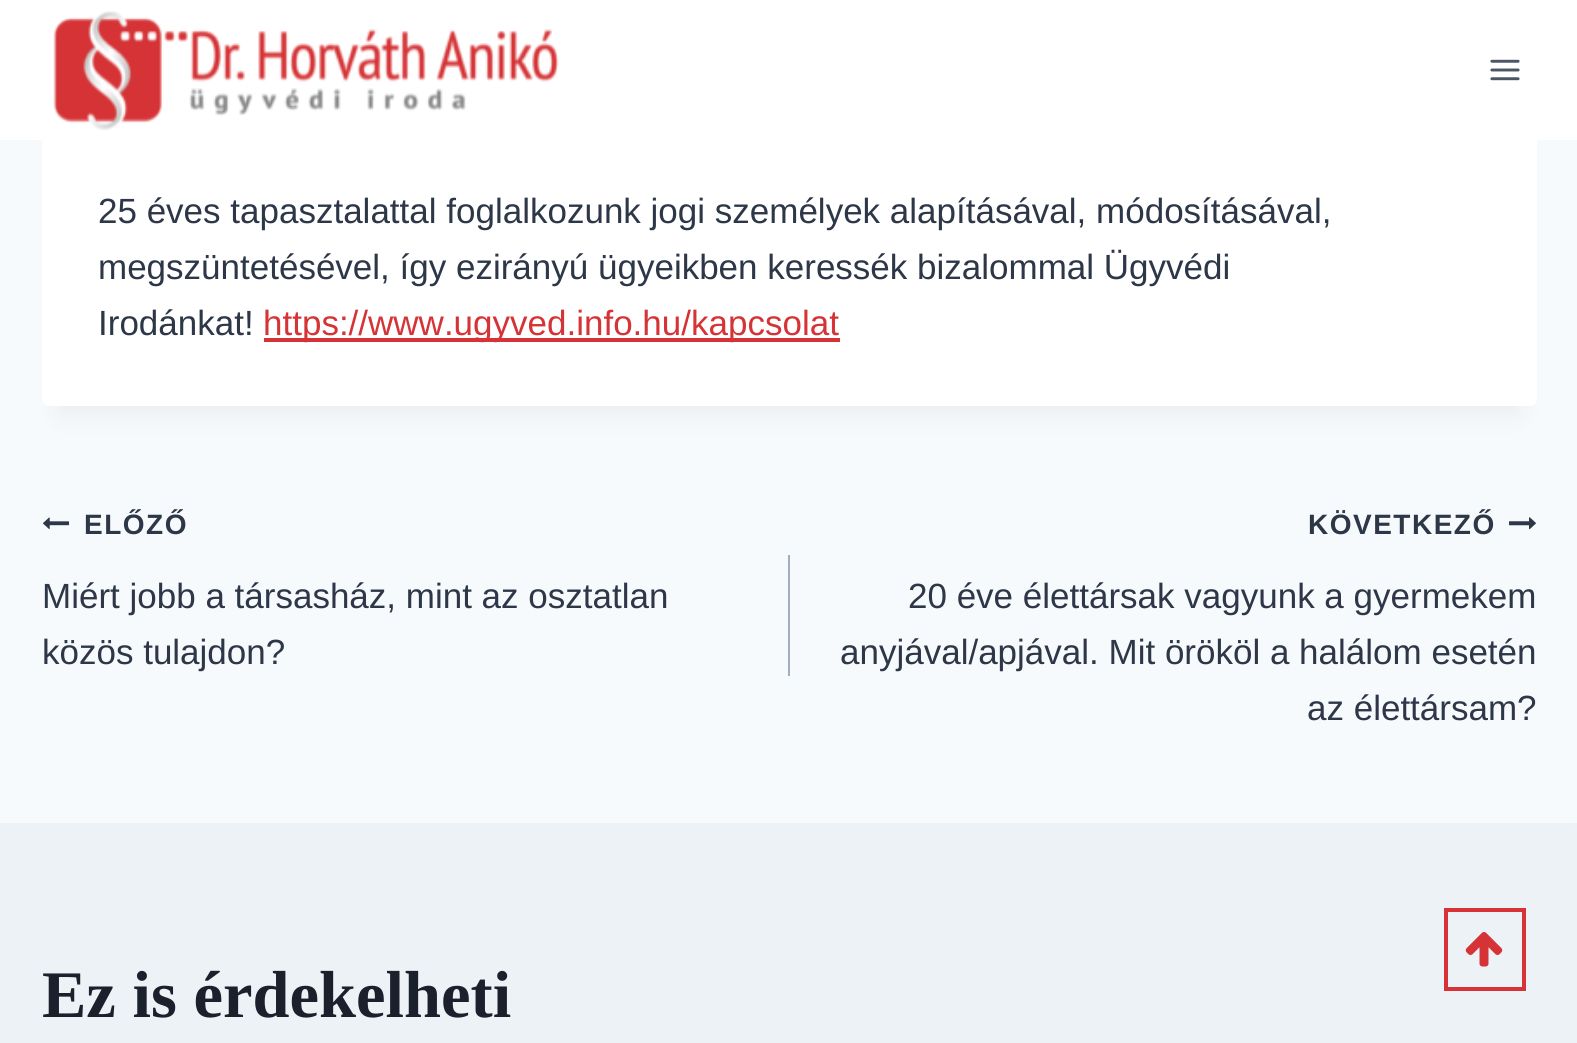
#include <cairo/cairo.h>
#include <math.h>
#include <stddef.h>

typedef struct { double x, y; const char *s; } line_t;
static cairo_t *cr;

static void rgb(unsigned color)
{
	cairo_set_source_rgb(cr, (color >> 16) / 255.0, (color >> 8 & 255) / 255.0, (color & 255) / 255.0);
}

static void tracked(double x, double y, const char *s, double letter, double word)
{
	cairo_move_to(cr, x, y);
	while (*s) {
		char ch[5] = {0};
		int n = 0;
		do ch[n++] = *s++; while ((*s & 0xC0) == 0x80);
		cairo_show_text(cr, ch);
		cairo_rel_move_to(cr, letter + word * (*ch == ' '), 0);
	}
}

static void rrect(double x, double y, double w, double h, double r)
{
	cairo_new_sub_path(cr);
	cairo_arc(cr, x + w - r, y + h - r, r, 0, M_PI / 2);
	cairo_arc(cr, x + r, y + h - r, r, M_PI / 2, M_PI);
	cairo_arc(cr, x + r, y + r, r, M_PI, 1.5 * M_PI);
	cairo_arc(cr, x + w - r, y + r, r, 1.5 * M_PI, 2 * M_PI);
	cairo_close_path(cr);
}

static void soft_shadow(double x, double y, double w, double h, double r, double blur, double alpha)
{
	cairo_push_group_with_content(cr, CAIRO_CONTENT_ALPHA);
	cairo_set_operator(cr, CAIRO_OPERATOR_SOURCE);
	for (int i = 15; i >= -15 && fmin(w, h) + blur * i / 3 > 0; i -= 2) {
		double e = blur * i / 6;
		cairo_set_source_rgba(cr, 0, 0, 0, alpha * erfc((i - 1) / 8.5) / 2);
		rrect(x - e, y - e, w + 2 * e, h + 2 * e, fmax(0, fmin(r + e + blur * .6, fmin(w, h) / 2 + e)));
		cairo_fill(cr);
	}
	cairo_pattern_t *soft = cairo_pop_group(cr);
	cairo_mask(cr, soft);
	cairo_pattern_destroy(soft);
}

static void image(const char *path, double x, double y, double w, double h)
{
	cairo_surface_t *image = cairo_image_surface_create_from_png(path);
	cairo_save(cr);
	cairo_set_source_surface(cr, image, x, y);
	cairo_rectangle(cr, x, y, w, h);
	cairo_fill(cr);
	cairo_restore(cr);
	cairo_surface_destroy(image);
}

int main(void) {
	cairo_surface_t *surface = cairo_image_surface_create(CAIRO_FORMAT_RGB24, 1577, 1043);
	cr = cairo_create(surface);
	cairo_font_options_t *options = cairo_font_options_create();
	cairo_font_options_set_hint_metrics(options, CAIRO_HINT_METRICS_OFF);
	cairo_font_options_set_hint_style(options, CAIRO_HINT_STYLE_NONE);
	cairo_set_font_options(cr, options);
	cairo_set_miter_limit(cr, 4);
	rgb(0xf7fafc);
	cairo_paint(cr);
	rgb(0x000000);
	soft_shadow(60, -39, 1459, 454, 0, 13, 0.05);
	rgb(0xffffff);
	rrect(42, -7, 1495, 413, 7);
	cairo_fill(cr);
	cairo_rectangle(cr, 0, 0, 1577, 140);
	cairo_fill(cr);
	image("img/1.png", 53, 10, 506, 121);
	image("img/2.png", 1490, 59, 30, 22);
	rgb(0xd53336);
	cairo_rectangle(cr, 264, 338, 576, 4);
	cairo_fill(cr);
	image("img/3.png", 43, 517, 27, 12);
	rgb(0xa0aec0);
	cairo_rectangle(cr, 788, 555, 2, 121);
	cairo_fill(cr);
	image("img/4.png", 1509, 517, 27, 13);
	rgb(0xedf2f7);
	cairo_rectangle(cr, 0, 823, 1577, 220);
	cairo_fill(cr);
	cairo_rectangle(cr, 1446, 910, 78, 79);
	rgb(0xd53336);
	cairo_set_line_width(cr, 4);
	cairo_stroke(cr);
	image("img/5.png", 1465, 932, 38, 35);
	cairo_select_font_face(cr, "Liberation Sans", CAIRO_FONT_SLANT_NORMAL, CAIRO_FONT_WEIGHT_NORMAL);
	cairo_set_font_size(cr, 35);
	rgb(0x2d3748);
	{
		static const line_t items[] = {
			{98, 223, "25 éves tapasztalattal foglalkozunk jogi személyek alapításával, módosításával,"},
			{98, 279, "megszüntetésével, így ezirányú ügyeikben keressék bizalommal Ügyvédi"},
			{98, 335, "Irodánkat!"},
		};
		for (size_t i = 0; i < sizeof items / sizeof *items; i++) {
			cairo_move_to(cr, items[i].x, items[i].y);
			cairo_show_text(cr, items[i].s);
		}
	}
	rgb(0xd53336);
	cairo_move_to(cr, 263, 335);
	cairo_show_text(cr, "https://www.ugyved.info.hu/kapcsolat");
	cairo_select_font_face(cr, "Liberation Sans", CAIRO_FONT_SLANT_NORMAL, CAIRO_FONT_WEIGHT_BOLD);
	cairo_set_font_size(cr, 28);
	rgb(0x2d3748);
	tracked(84, 534, "ELŐZŐ", 1.5, 0);
	cairo_select_font_face(cr, "Liberation Sans", CAIRO_FONT_SLANT_NORMAL, CAIRO_FONT_WEIGHT_NORMAL);
	cairo_set_font_size(cr, 35);
	cairo_move_to(cr, 42, 608);
	cairo_show_text(cr, "Miért jobb a társasház, mint az osztatlan");
	cairo_move_to(cr, 42, 664);
	cairo_show_text(cr, "közös tulajdon?");
	cairo_select_font_face(cr, "Liberation Sans", CAIRO_FONT_SLANT_NORMAL, CAIRO_FONT_WEIGHT_BOLD);
	cairo_set_font_size(cr, 28);
	tracked(1308, 534, "KÖVETKEZŐ", 1.5, 0);
	cairo_select_font_face(cr, "Liberation Sans", CAIRO_FONT_SLANT_NORMAL, CAIRO_FONT_WEIGHT_NORMAL);
	cairo_set_font_size(cr, 35);
	{
		static const line_t items[] = {
			{908, 608, "20 éve élettársak vagyunk a gyermekem"},
			{840, 664, "anyjával/apjával. Mit örököl a halálom esetén"},
			{1307, 720, "az élettársam?"},
		};
		for (size_t i = 0; i < sizeof items / sizeof *items; i++) {
			cairo_move_to(cr, items[i].x, items[i].y);
			cairo_show_text(cr, items[i].s);
		}
	}
	cairo_select_font_face(cr, "Liberation Serif", CAIRO_FONT_SLANT_NORMAL, CAIRO_FONT_WEIGHT_BOLD);
	cairo_set_font_size(cr, 66.5);
	rgb(0x1a202c);
	cairo_move_to(cr, 42, 1017);
	cairo_show_text(cr, "Ez is érdekelheti");
	cairo_surface_write_to_png(surface, "page.png");
	cairo_font_options_destroy(options);
	cairo_destroy(cr);
	cairo_surface_destroy(surface);
	return 0;
}
